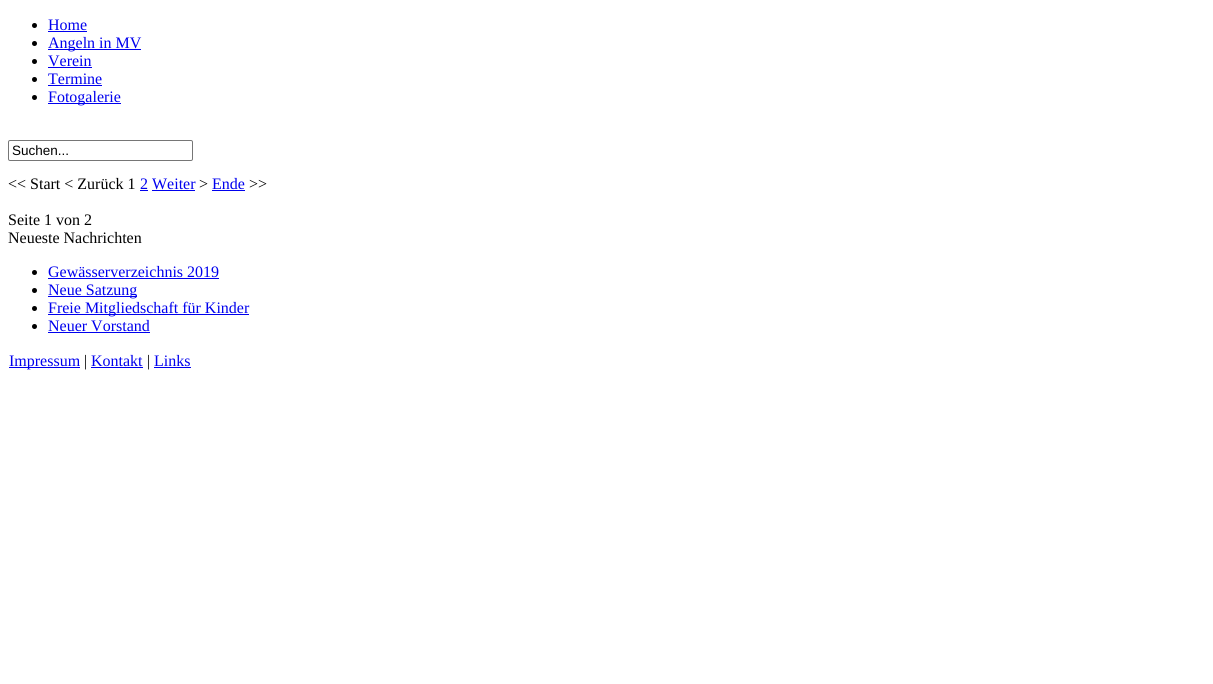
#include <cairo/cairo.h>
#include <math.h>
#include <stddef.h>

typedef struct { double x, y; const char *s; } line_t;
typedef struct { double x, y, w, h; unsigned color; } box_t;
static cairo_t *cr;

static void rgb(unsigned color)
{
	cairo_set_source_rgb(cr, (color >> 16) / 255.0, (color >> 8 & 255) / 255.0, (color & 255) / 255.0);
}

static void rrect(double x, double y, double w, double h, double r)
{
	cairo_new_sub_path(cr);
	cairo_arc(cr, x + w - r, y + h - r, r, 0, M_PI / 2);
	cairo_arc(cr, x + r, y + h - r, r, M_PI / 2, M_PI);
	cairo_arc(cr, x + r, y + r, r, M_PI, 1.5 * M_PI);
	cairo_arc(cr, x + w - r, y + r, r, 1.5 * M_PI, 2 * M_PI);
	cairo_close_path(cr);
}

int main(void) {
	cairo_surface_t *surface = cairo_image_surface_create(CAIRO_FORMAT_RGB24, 1213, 684);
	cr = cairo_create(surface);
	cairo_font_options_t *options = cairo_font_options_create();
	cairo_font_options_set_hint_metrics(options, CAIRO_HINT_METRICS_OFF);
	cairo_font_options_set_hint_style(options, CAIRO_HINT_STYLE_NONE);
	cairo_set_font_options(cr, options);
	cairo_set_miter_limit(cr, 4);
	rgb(0xffffff);
	cairo_paint(cr);
	rgb(0x000000);
	cairo_arc(cr, 34.5, 25.5, 2.5, 0, 2 * M_PI);
	cairo_fill(cr);
	rgb(0x0000ee);
	cairo_rectangle(cr, 48, 31, 39, 1);
	cairo_fill(cr);
	rgb(0x000000);
	cairo_arc(cr, 34.5, 43.5, 2.5, 0, 2 * M_PI);
	cairo_fill(cr);
	rgb(0x0000ee);
	cairo_rectangle(cr, 48, 49, 93, 1);
	cairo_fill(cr);
	rgb(0x000000);
	cairo_arc(cr, 34.5, 61.5, 2.5, 0, 2 * M_PI);
	cairo_fill(cr);
	rgb(0x0000ee);
	cairo_rectangle(cr, 48, 67, 44, 1);
	cairo_fill(cr);
	rgb(0x000000);
	cairo_arc(cr, 34.5, 79.5, 2.5, 0, 2 * M_PI);
	cairo_fill(cr);
	rgb(0x0000ee);
	cairo_rectangle(cr, 48, 85, 54, 1);
	cairo_fill(cr);
	rgb(0x000000);
	cairo_arc(cr, 34.5, 97.5, 2.5, 0, 2 * M_PI);
	cairo_fill(cr);
	rgb(0x0000ee);
	cairo_rectangle(cr, 48, 103, 73, 1);
	cairo_fill(cr);
	rrect(8.5, 140.5, 184, 20, 1.5);
	rgb(0x767676);
	cairo_set_line_width(cr, 1);
	cairo_stroke(cr);
	{
		static const box_t items[] = {
			{140, 190, 8, 1, 0x0000ee},
			{212, 190, 33, 1, 0x0000ee},
			{152, 190, 43, 1, 0x0000ee},
		};
		for (size_t i = 0; i < sizeof items / sizeof *items; i++) {
			rgb(items[i].color);
			cairo_rectangle(cr, items[i].x, items[i].y, items[i].w, items[i].h);
			cairo_fill(cr);
		}
	}
	rgb(0x000000);
	cairo_arc(cr, 34.5, 272.5, 2.5, 0, 2 * M_PI);
	cairo_fill(cr);
	rgb(0x0000ee);
	cairo_rectangle(cr, 48, 278, 171, 1);
	cairo_fill(cr);
	rgb(0x000000);
	cairo_arc(cr, 34.5, 290.5, 2.5, 0, 2 * M_PI);
	cairo_fill(cr);
	rgb(0x0000ee);
	cairo_rectangle(cr, 48, 296, 89, 1);
	cairo_fill(cr);
	rgb(0x000000);
	cairo_arc(cr, 34.5, 308.5, 2.5, 0, 2 * M_PI);
	cairo_fill(cr);
	rgb(0x0000ee);
	cairo_rectangle(cr, 48, 314, 201, 1);
	cairo_fill(cr);
	rgb(0x000000);
	cairo_arc(cr, 34.5, 326.5, 2.5, 0, 2 * M_PI);
	cairo_fill(cr);
	{
		static const box_t items[] = {
			{48, 332, 102, 1, 0x0000ee},
			{9, 367, 71, 1, 0x0000ee},
			{91, 367, 52, 1, 0x0000ee},
			{154, 367, 37, 1, 0x0000ee},
		};
		for (size_t i = 0; i < sizeof items / sizeof *items; i++) {
			rgb(items[i].color);
			cairo_rectangle(cr, items[i].x, items[i].y, items[i].w, items[i].h);
			cairo_fill(cr);
		}
	}
	cairo_select_font_face(cr, "Liberation Serif", CAIRO_FONT_SLANT_NORMAL, CAIRO_FONT_WEIGHT_NORMAL);
	cairo_set_font_size(cr, 16);
	{
		static const line_t items[] = {
			{48, 30, "Home"},
			{48, 48, "Angeln in MV"},
			{48, 66, "Verein"},
			{48, 84, "Termine"},
			{48, 102, "Fotogalerie"},
		};
		for (size_t i = 0; i < sizeof items / sizeof *items; i++) {
			cairo_move_to(cr, items[i].x, items[i].y);
			cairo_show_text(cr, items[i].s);
		}
	}
	cairo_select_font_face(cr, "Liberation Sans", CAIRO_FONT_SLANT_NORMAL, CAIRO_FONT_WEIGHT_NORMAL);
	cairo_set_font_size(cr, 13.5);
	rgb(0x000000);
	cairo_move_to(cr, 12, 155);
	cairo_show_text(cr, "Suchen...");
	cairo_select_font_face(cr, "Liberation Serif", CAIRO_FONT_SLANT_NORMAL, CAIRO_FONT_WEIGHT_NORMAL);
	cairo_set_font_size(cr, 16);
	cairo_move_to(cr, 8, 189);
	cairo_show_text(cr, "<< Start < Zurück 1");
	rgb(0x0000ee);
	cairo_move_to(cr, 140, 189);
	cairo_show_text(cr, "2 Weiter");
	rgb(0x000000);
	cairo_move_to(cr, 199, 189);
	cairo_show_text(cr, ">");
	rgb(0x0000ee);
	cairo_move_to(cr, 212, 189);
	cairo_show_text(cr, "Ende");
	rgb(0x000000);
	{
		static const line_t items[] = {
			{249, 189, ">>"},
			{8, 225, "Seite 1 von 2"},
			{8, 243, "Neueste Nachrichten"},
		};
		for (size_t i = 0; i < sizeof items / sizeof *items; i++) {
			cairo_move_to(cr, items[i].x, items[i].y);
			cairo_show_text(cr, items[i].s);
		}
	}
	rgb(0x0000ee);
	{
		static const line_t items[] = {
			{48, 277, "Gewässerverzeichnis 2019"},
			{48, 295, "Neue Satzung"},
			{48, 313, "Freie Mitgliedschaft für Kinder"},
			{48, 331, "Neuer Vorstand"},
			{9, 366, "Impressum"},
		};
		for (size_t i = 0; i < sizeof items / sizeof *items; i++) {
			cairo_move_to(cr, items[i].x, items[i].y);
			cairo_show_text(cr, items[i].s);
		}
	}
	rgb(0x000000);
	cairo_move_to(cr, 84, 366);
	cairo_show_text(cr, "|");
	rgb(0x0000ee);
	cairo_move_to(cr, 91, 366);
	cairo_show_text(cr, "Kontakt");
	rgb(0x000000);
	cairo_move_to(cr, 147, 366);
	cairo_show_text(cr, "|");
	rgb(0x0000ee);
	cairo_move_to(cr, 154, 366);
	cairo_show_text(cr, "Links");
	cairo_surface_write_to_png(surface, "page.png");
	cairo_font_options_destroy(options);
	cairo_destroy(cr);
	cairo_surface_destroy(surface);
	return 0;
}
